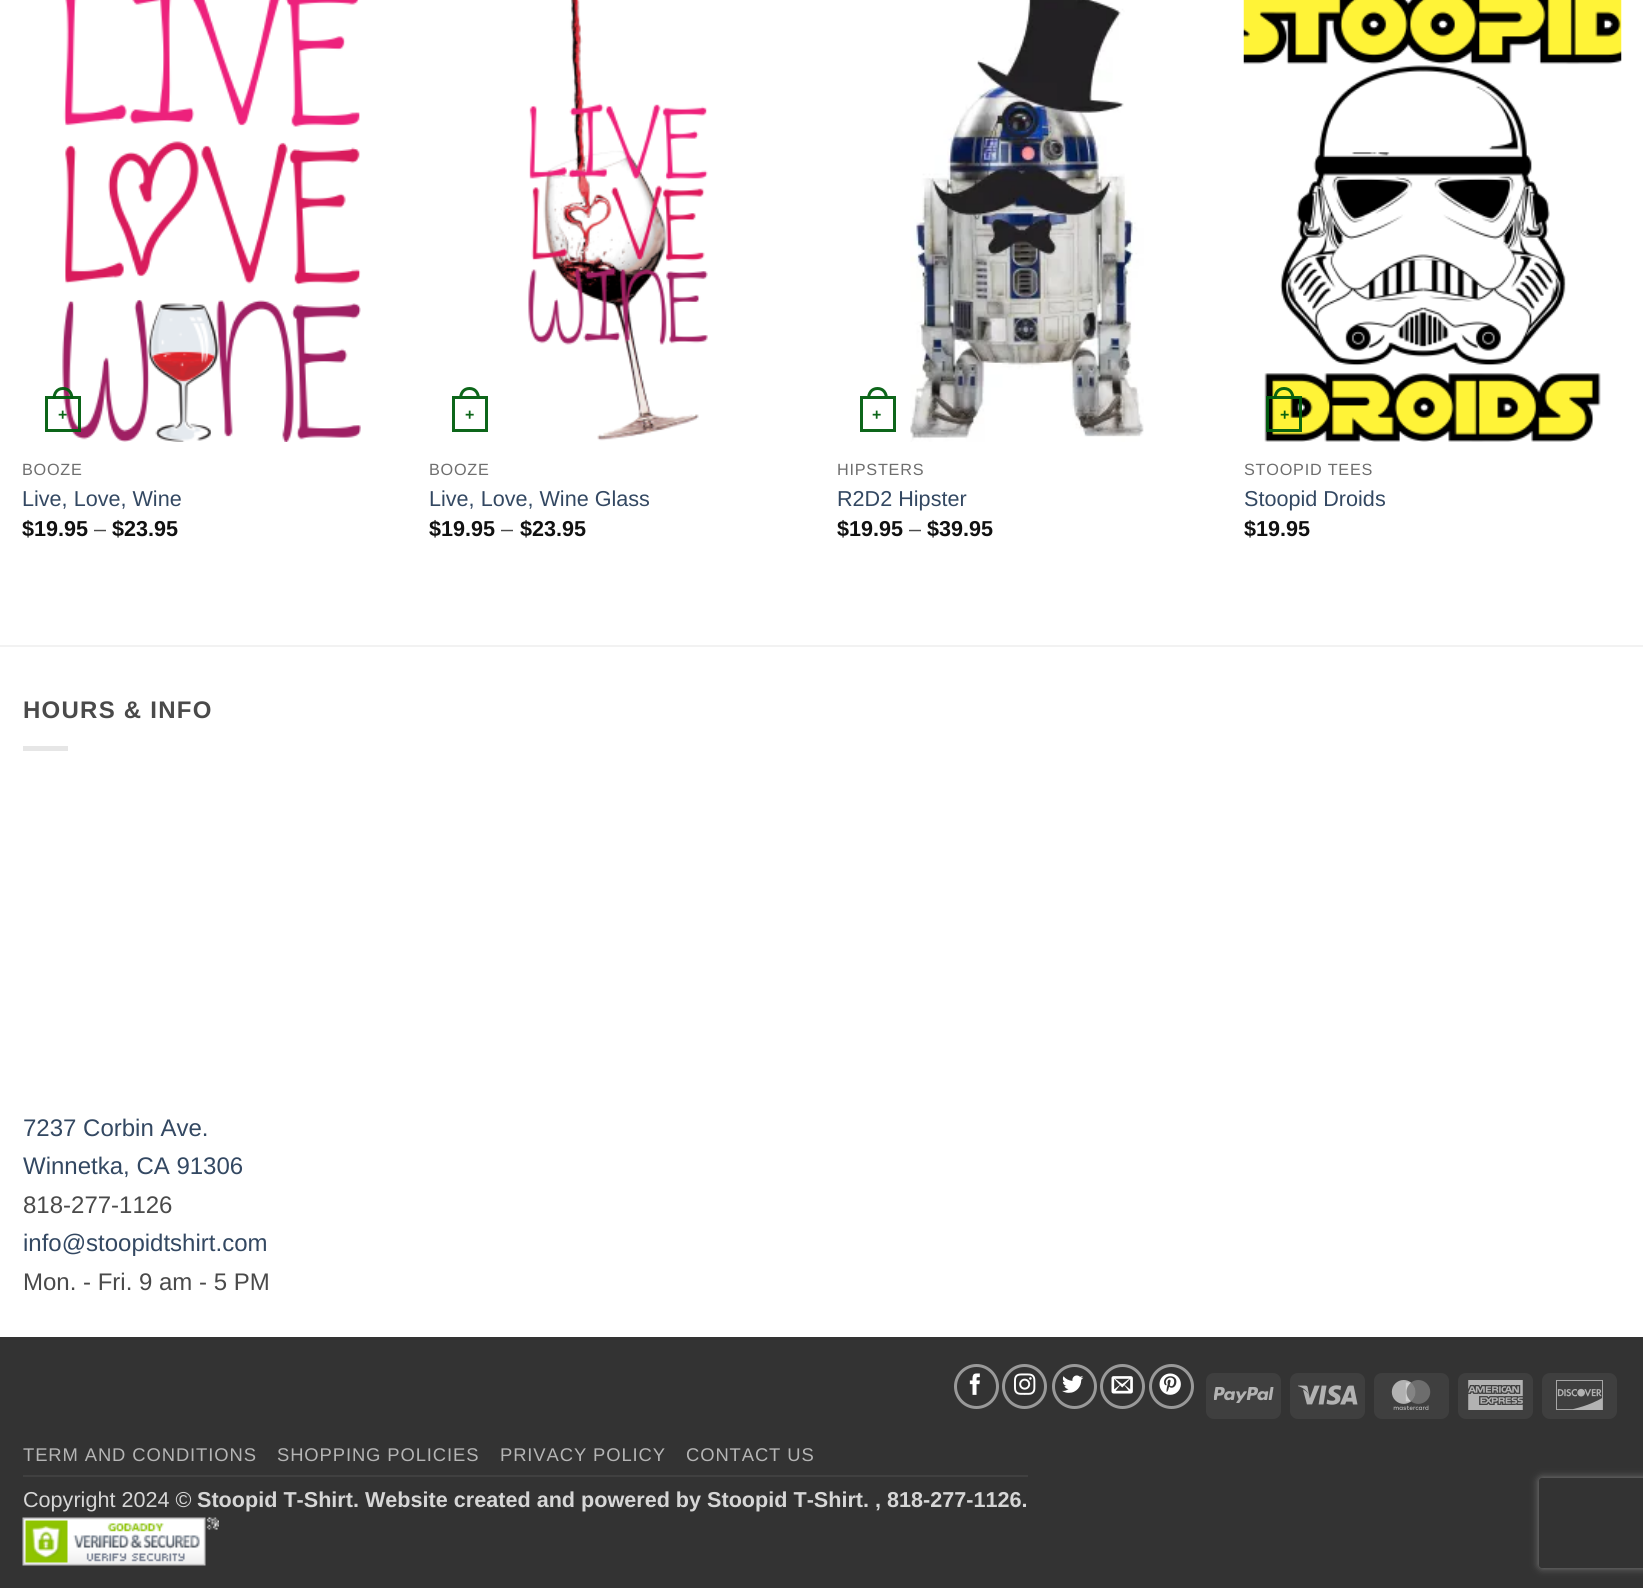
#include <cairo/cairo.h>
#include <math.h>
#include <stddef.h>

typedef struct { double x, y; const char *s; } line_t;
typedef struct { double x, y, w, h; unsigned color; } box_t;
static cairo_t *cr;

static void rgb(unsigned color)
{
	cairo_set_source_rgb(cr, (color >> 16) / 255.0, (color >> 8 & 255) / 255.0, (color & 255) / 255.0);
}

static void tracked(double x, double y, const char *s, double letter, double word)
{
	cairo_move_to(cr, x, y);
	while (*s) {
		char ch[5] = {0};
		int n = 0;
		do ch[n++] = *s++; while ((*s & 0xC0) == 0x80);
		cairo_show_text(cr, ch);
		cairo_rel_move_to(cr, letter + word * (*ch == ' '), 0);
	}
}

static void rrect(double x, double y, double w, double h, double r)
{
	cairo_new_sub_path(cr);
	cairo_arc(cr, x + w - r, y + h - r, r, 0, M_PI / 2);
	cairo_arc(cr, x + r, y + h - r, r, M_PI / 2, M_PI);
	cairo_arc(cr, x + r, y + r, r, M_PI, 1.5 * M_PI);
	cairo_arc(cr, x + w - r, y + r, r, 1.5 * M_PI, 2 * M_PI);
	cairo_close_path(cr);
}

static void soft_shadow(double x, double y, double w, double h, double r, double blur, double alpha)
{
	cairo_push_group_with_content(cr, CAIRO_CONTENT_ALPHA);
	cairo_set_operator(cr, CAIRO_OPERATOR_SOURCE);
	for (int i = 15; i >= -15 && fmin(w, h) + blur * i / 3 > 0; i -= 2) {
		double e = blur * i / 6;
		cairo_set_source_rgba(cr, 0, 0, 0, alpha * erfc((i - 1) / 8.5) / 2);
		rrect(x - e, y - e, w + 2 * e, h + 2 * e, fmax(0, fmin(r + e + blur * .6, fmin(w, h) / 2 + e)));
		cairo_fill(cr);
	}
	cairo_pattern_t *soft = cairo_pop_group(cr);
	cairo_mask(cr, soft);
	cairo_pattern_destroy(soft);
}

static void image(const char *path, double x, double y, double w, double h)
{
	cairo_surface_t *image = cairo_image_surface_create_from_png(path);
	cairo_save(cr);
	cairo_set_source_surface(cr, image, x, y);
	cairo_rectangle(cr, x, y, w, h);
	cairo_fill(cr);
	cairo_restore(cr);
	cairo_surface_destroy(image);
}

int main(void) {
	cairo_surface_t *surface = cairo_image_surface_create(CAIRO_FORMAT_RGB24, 1643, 1588);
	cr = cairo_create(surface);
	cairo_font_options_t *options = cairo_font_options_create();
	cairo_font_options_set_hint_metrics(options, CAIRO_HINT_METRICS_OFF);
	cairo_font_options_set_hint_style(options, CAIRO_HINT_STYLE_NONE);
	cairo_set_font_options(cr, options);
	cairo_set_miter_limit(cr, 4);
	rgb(0xffffff);
	cairo_paint(cr);
	image("img/1.png", 62, 0, 299, 442);
	cairo_rectangle(cr, 46.5, 397.5, 33, 33);
	cairo_set_source_rgba(cr, 0, 0.369, 0.055, 0.95);
	cairo_set_line_width(cr, 3);
	cairo_stroke(cr);
	cairo_set_fill_rule(cr, CAIRO_FILL_RULE_EVEN_ODD);
	cairo_new_path(cr);
	cairo_move_to(cr, 63, 387);
	cairo_curve_to(cr, 70, 387, 73.5, 392.5, 73.5, 399);
	cairo_line_to(cr, 52.5, 399);
	cairo_curve_to(cr, 52.5, 392.5, 56, 387, 63, 387);
	cairo_close_path(cr);
	cairo_move_to(cr, 63, 390);
	cairo_curve_to(cr, 68.5, 390, 70.5, 394.5, 70.5, 399);
	cairo_line_to(cr, 55.5, 399);
	cairo_curve_to(cr, 55.5, 394.5, 57.5, 390, 63, 390);
	cairo_close_path(cr);
	cairo_fill(cr);
	cairo_rectangle(cr, 453.5, 397.5, 33, 33);
	rgb(0x0d661a);
	cairo_stroke(cr);
	cairo_new_path(cr);
	cairo_move_to(cr, 469.5, 387);
	cairo_curve_to(cr, 476.5, 387, 480, 392.5, 480, 399);
	cairo_line_to(cr, 459, 399);
	cairo_curve_to(cr, 459, 392.5, 462.5, 387, 469.5, 387);
	cairo_close_path(cr);
	cairo_move_to(cr, 469.5, 390);
	cairo_curve_to(cr, 475, 390, 477, 394.5, 477, 399);
	cairo_line_to(cr, 462, 399);
	cairo_curve_to(cr, 462, 394.5, 464, 390, 469.5, 390);
	cairo_close_path(cr);
	cairo_fill(cr);
	image("img/2.png", 528, 0, 180, 441);
	cairo_rectangle(cr, 861.5, 397.5, 33, 33);
	cairo_stroke(cr);
	cairo_new_path(cr);
	cairo_move_to(cr, 877.5, 387);
	cairo_curve_to(cr, 884.5, 387, 888, 392.5, 888, 399);
	cairo_line_to(cr, 867, 399);
	cairo_curve_to(cr, 867, 392.5, 870.5, 387, 877.5, 387);
	cairo_close_path(cr);
	cairo_move_to(cr, 877.5, 390);
	cairo_curve_to(cr, 883, 390, 885, 394.5, 885, 399);
	cairo_line_to(cr, 870, 399);
	cairo_curve_to(cr, 870, 394.5, 872, 390, 877.5, 390);
	cairo_close_path(cr);
	cairo_fill(cr);
	image("img/3.png", 910, 0, 234, 442);
	image("img/4.png", 1243, 0, 379, 442);
	cairo_rectangle(cr, 1267.5, 397.5, 33, 33);
	cairo_set_source_rgba(cr, 0, 0.369, 0.055, 0.95);
	cairo_stroke(cr);
	cairo_new_path(cr);
	cairo_move_to(cr, 1284, 387);
	cairo_curve_to(cr, 1291, 387, 1294.5, 392.5, 1294.5, 399);
	cairo_line_to(cr, 1273.5, 399);
	cairo_curve_to(cr, 1273.5, 392.5, 1277, 387, 1284, 387);
	cairo_close_path(cr);
	cairo_move_to(cr, 1284, 390);
	cairo_curve_to(cr, 1289.5, 390, 1291.5, 394.5, 1291.5, 399);
	cairo_line_to(cr, 1276.5, 399);
	cairo_curve_to(cr, 1276.5, 394.5, 1278.5, 390, 1284, 390);
	cairo_close_path(cr);
	cairo_fill(cr);
	{
		static const box_t items[] = {
			{0, 645, 1643, 2, 0xf2f2f2},
			{23, 746, 45, 5, 0xe6e6e6},
			{0, 1337, 1643, 251, 0x333333},
		};
		for (size_t i = 0; i < sizeof items / sizeof *items; i++) {
			rgb(items[i].color);
			cairo_rectangle(cr, items[i].x, items[i].y, items[i].w, items[i].h);
			cairo_fill(cr);
		}
	}
	cairo_arc(cr, 976.5, 1386.5, 21, 0, 2 * M_PI);
	rgb(0x999999);
	cairo_stroke(cr);
	image("img/5.png", 969, 1373, 11, 22);
	cairo_arc(cr, 1024.5, 1386.5, 21, 0, 2 * M_PI);
	cairo_stroke(cr);
	image("img/6.png", 1014, 1373, 22, 22);
	cairo_arc(cr, 1074.5, 1386.5, 21, 0, 2 * M_PI);
	cairo_stroke(cr);
	image("img/7.png", 1062, 1375, 22, 18);
	cairo_arc(cr, 1122.5, 1386.5, 21, 0, 2 * M_PI);
	cairo_stroke(cr);
	image("img/8.png", 1111, 1376, 22, 18);
	cairo_arc(cr, 1171.5, 1386.5, 21, 0, 2 * M_PI);
	cairo_stroke(cr);
	image("img/9.png", 1159, 1373, 22, 22);
	rgb(0x3f3f3f);
	rrect(1206, 1373, 75, 46, 8);
	cairo_fill(cr);
	image("img/10.png", 1214, 1387, 60, 16);
	rrect(1290, 1373, 75, 46, 8);
	cairo_fill(cr);
	image("img/11.png", 1298, 1385, 60, 20);
	rrect(1374, 1373, 75, 46, 8);
	cairo_fill(cr);
	image("img/12.png", 1391, 1380, 40, 30);
	rrect(1458, 1373, 75, 46, 8);
	cairo_fill(cr);
	image("img/13.png", 1468, 1380, 55, 30);
	rrect(1542, 1373, 75, 46, 8);
	cairo_fill(cr);
	image("img/14.png", 1556, 1380, 47, 30);
	rgb(0x404040);
	cairo_rectangle(cr, 23, 1475, 1005, 2);
	cairo_fill(cr);
	image("img/15.png", 22, 1517, 197, 49);
	cairo_save(cr);
	cairo_new_path(cr);
	cairo_move_to(cr, 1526, 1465);
	cairo_line_to(cr, 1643, 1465);
	cairo_line_to(cr, 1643, 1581);
	cairo_line_to(cr, 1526, 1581);
	cairo_close_path(cr);
	cairo_move_to(cr, 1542, 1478);
	cairo_line_to(cr, 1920, 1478);
	cairo_curve_to(cr, 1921.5, 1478, 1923, 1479.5, 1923, 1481);
	cairo_line_to(cr, 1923, 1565);
	cairo_curve_to(cr, 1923, 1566.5, 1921.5, 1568, 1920, 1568);
	cairo_line_to(cr, 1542, 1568);
	cairo_curve_to(cr, 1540.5, 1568, 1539, 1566.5, 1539, 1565);
	cairo_line_to(cr, 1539, 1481);
	cairo_curve_to(cr, 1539, 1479.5, 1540.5, 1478, 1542, 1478);
	cairo_close_path(cr);
	cairo_clip(cr);
	rgb(0x808080);
	soft_shadow(1539, 1478, 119, 90, 3, 4, 1);
	cairo_restore(cr);
	cairo_select_font_face(cr, "Liberation Sans", CAIRO_FONT_SLANT_NORMAL, CAIRO_FONT_WEIGHT_BOLD);
	cairo_set_font_size(cr, 16);
	rgb(0x0d661a);
	cairo_move_to(cr, 58, 420);
	cairo_show_text(cr, "+");
	cairo_select_font_face(cr, "Liberation Sans", CAIRO_FONT_SLANT_NORMAL, CAIRO_FONT_WEIGHT_NORMAL);
	cairo_set_font_size(cr, 16.25);
	rgb(0x6e6e6e);
	tracked(22, 475, "BOOZE", 0.75, 0);
	cairo_set_font_size(cr, 21.6);
	rgb(0x334862);
	cairo_move_to(cr, 22, 506);
	cairo_show_text(cr, "Live, Love, Wine");
	cairo_select_font_face(cr, "Liberation Sans", CAIRO_FONT_SLANT_NORMAL, CAIRO_FONT_WEIGHT_BOLD);
	rgb(0x111111);
	cairo_move_to(cr, 22, 536);
	cairo_show_text(cr, "$19.95");
	cairo_select_font_face(cr, "Liberation Sans", CAIRO_FONT_SLANT_NORMAL, CAIRO_FONT_WEIGHT_NORMAL);
	rgb(0x4a4a4a);
	cairo_move_to(cr, 94, 536);
	cairo_show_text(cr, "–");
	cairo_select_font_face(cr, "Liberation Sans", CAIRO_FONT_SLANT_NORMAL, CAIRO_FONT_WEIGHT_BOLD);
	rgb(0x111111);
	cairo_move_to(cr, 112, 536);
	cairo_show_text(cr, "$23.95");
	cairo_set_font_size(cr, 16);
	rgb(0x0d661a);
	cairo_move_to(cr, 465, 420);
	cairo_show_text(cr, "+");
	cairo_select_font_face(cr, "Liberation Sans", CAIRO_FONT_SLANT_NORMAL, CAIRO_FONT_WEIGHT_NORMAL);
	cairo_set_font_size(cr, 16.25);
	rgb(0x6e6e6e);
	tracked(429, 475, "BOOZE", 0.75, 0);
	cairo_set_font_size(cr, 21.6);
	rgb(0x334862);
	cairo_move_to(cr, 429, 506);
	cairo_show_text(cr, "Live, Love, Wine Glass");
	cairo_select_font_face(cr, "Liberation Sans", CAIRO_FONT_SLANT_NORMAL, CAIRO_FONT_WEIGHT_BOLD);
	rgb(0x111111);
	cairo_move_to(cr, 429, 536);
	cairo_show_text(cr, "$19.95");
	cairo_select_font_face(cr, "Liberation Sans", CAIRO_FONT_SLANT_NORMAL, CAIRO_FONT_WEIGHT_NORMAL);
	rgb(0x4a4a4a);
	cairo_move_to(cr, 501, 536);
	cairo_show_text(cr, "–");
	cairo_select_font_face(cr, "Liberation Sans", CAIRO_FONT_SLANT_NORMAL, CAIRO_FONT_WEIGHT_BOLD);
	rgb(0x111111);
	cairo_move_to(cr, 520, 536);
	cairo_show_text(cr, "$23.95");
	cairo_set_font_size(cr, 16);
	rgb(0x0d661a);
	cairo_move_to(cr, 872, 420);
	cairo_show_text(cr, "+");
	cairo_select_font_face(cr, "Liberation Sans", CAIRO_FONT_SLANT_NORMAL, CAIRO_FONT_WEIGHT_NORMAL);
	cairo_set_font_size(cr, 16.25);
	rgb(0x6e6e6e);
	tracked(837, 475, "HIPSTERS", 0.75, 0);
	cairo_set_font_size(cr, 21.6);
	rgb(0x334862);
	cairo_move_to(cr, 837, 506);
	cairo_show_text(cr, "R2D2 Hipster");
	cairo_select_font_face(cr, "Liberation Sans", CAIRO_FONT_SLANT_NORMAL, CAIRO_FONT_WEIGHT_BOLD);
	rgb(0x111111);
	cairo_move_to(cr, 837, 536);
	cairo_show_text(cr, "$19.95");
	cairo_select_font_face(cr, "Liberation Sans", CAIRO_FONT_SLANT_NORMAL, CAIRO_FONT_WEIGHT_NORMAL);
	rgb(0x4a4a4a);
	cairo_move_to(cr, 909, 536);
	cairo_show_text(cr, "–");
	cairo_select_font_face(cr, "Liberation Sans", CAIRO_FONT_SLANT_NORMAL, CAIRO_FONT_WEIGHT_BOLD);
	rgb(0x111111);
	cairo_move_to(cr, 927, 536);
	cairo_show_text(cr, "$39.95");
	cairo_set_font_size(cr, 16);
	rgb(0x0d6510);
	cairo_move_to(cr, 1280, 420);
	cairo_show_text(cr, "+");
	cairo_select_font_face(cr, "Liberation Sans", CAIRO_FONT_SLANT_NORMAL, CAIRO_FONT_WEIGHT_NORMAL);
	cairo_set_font_size(cr, 16.25);
	rgb(0x6e6e6e);
	tracked(1244, 475, "STOOPID TEES", 0.75, 0);
	cairo_set_font_size(cr, 21.6);
	rgb(0x334862);
	cairo_move_to(cr, 1244, 506);
	cairo_show_text(cr, "Stoopid Droids");
	cairo_select_font_face(cr, "Liberation Sans", CAIRO_FONT_SLANT_NORMAL, CAIRO_FONT_WEIGHT_BOLD);
	rgb(0x111111);
	cairo_move_to(cr, 1244, 536);
	cairo_show_text(cr, "$19.95");
	cairo_set_font_size(cr, 24);
	rgb(0x4a4a4a);
	tracked(23, 718, "HOURS & INFO", 1.25, 0);
	cairo_select_font_face(cr, "Liberation Sans", CAIRO_FONT_SLANT_NORMAL, CAIRO_FONT_WEIGHT_NORMAL);
	rgb(0x334862);
	cairo_move_to(cr, 23, 1136);
	cairo_show_text(cr, "7237 Corbin Ave.");
	cairo_move_to(cr, 23, 1174);
	cairo_show_text(cr, "Winnetka, CA 91306");
	rgb(0x4a4a4a);
	cairo_move_to(cr, 23, 1213);
	cairo_show_text(cr, "818-277-1126");
	rgb(0x334862);
	cairo_move_to(cr, 23, 1251);
	cairo_show_text(cr, "info@stoopidtshirt.com");
	rgb(0x4a4a4a);
	cairo_move_to(cr, 23, 1290);
	cairo_show_text(cr, "Mon. - Fri. 9 am - 5 PM");
	cairo_set_font_size(cr, 18.4);
	rgb(0xb5b5b5);
	{
		static const line_t items[] = {
			{23, 1461, "TERM AND CONDITIONS"},
			{277, 1461, "SHOPPING POLICIES"},
			{500, 1461, "PRIVACY POLICY"},
			{686, 1461, "CONTACT US"},
		};
		for (size_t i = 0; i < sizeof items / sizeof *items; i++) {
			tracked(items[i].x, items[i].y, items[i].s, 0.9, 0);
		}
	}
	cairo_set_font_size(cr, 21.6);
	rgb(0xd6d6d6);
	cairo_move_to(cr, 23, 1507);
	cairo_show_text(cr, "Copyright 2024 ©");
	cairo_select_font_face(cr, "Liberation Sans", CAIRO_FONT_SLANT_NORMAL, CAIRO_FONT_WEIGHT_BOLD);
	cairo_move_to(cr, 197, 1507);
	cairo_show_text(cr, "Stoopid T-Shirt. Website created and powered by Stoopid T-Shirt. , 818-277-1126.");
	cairo_surface_write_to_png(surface, "page.png");
	cairo_font_options_destroy(options);
	cairo_destroy(cr);
	cairo_surface_destroy(surface);
	return 0;
}
